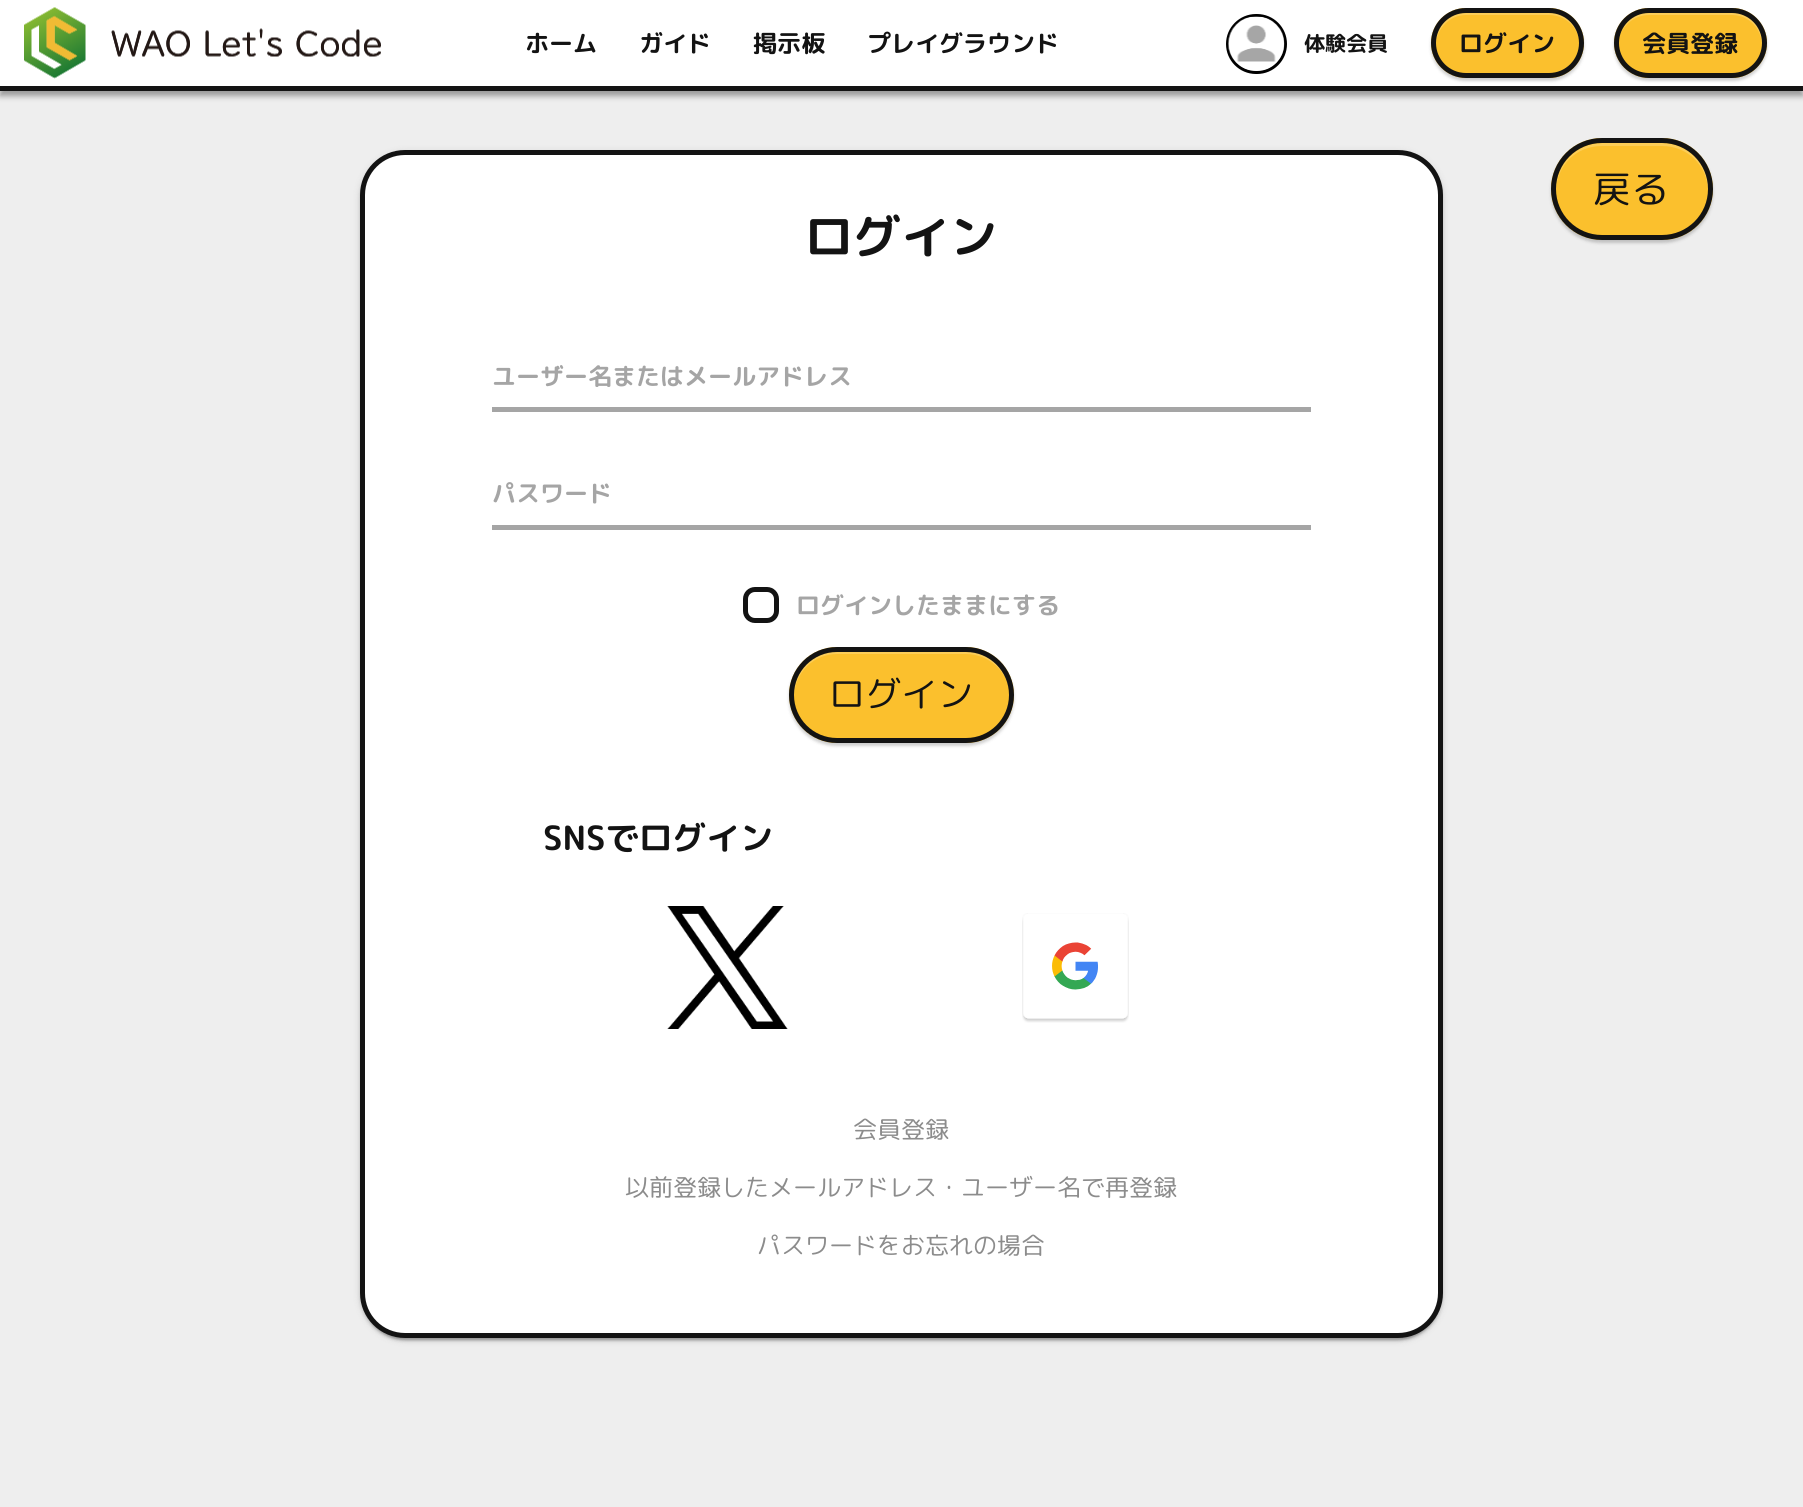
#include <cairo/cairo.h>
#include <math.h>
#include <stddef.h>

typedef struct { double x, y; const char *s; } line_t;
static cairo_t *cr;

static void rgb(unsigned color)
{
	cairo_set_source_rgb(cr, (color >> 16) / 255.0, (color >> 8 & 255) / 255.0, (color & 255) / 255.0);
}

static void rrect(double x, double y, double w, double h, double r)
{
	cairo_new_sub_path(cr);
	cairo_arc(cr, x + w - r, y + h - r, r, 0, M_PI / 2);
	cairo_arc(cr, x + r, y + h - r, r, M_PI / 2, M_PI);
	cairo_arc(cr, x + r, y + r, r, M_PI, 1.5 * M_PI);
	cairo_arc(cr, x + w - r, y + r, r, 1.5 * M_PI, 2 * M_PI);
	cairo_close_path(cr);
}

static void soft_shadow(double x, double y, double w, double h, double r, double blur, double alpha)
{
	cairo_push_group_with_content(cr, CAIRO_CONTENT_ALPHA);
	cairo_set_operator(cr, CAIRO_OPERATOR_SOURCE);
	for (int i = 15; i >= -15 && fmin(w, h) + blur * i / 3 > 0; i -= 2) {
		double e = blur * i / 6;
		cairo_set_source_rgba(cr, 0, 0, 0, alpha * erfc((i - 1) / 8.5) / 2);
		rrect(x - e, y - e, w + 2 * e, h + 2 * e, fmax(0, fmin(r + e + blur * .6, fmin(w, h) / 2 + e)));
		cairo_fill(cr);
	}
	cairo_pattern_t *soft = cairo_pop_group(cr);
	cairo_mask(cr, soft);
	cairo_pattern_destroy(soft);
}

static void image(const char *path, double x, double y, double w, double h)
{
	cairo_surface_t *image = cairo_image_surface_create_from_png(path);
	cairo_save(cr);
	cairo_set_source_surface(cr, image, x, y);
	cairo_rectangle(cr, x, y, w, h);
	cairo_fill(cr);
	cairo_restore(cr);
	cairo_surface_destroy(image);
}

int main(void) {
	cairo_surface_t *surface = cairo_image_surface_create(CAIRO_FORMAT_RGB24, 1803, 1507);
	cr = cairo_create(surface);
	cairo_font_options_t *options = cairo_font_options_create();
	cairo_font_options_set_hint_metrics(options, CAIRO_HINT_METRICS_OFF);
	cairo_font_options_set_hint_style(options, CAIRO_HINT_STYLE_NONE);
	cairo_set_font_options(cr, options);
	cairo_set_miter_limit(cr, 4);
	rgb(0xeeeeee);
	cairo_paint(cr);
	rgb(0x0d0d0d);
	soft_shadow(0, 6, 1803, 90, 0, 3, 0.38);
	rgb(0xffffff);
	cairo_rectangle(cr, 0, 0, 1803, 86);
	cairo_fill(cr);
	rgb(0x131313);
	cairo_rectangle(cr, 0, 86, 1803, 5);
	cairo_fill(cr);
	image("img/1.png", 24, 7, 357, 72);
	rrect(1227.5, 15.5, 58, 57, 28.5);
	rgb(0x000000);
	cairo_set_line_width(cr, 3);
	cairo_stroke(cr);
	image("img/2.png", 1228, 16, 57, 55);
	rgb(0x000000);
	soft_shadow(1431, 11, 153, 70, 35, 1.5, 0.19);
	rgb(0xfbc02d);
	rrect(1431, 8, 153, 70, 35);
	cairo_fill(cr);
	rgb(0xfccd57);
	cairo_new_path(cr);
	cairo_move_to(cr, 1466, 15);
	cairo_line_to(cr, 1549, 15);
	cairo_curve_to(cr, 1566, 15, 1579, 28, 1580, 45);
	cairo_line_to(cr, 1580, 43);
	cairo_curve_to(cr, 1580, 26, 1566, 12, 1549, 12);
	cairo_line_to(cr, 1467, 12);
	cairo_curve_to(cr, 1450, 12, 1436, 26, 1436, 43);
	cairo_line_to(cr, 1436, 44);
	cairo_curve_to(cr, 1437, 28, 1450, 15, 1466, 15);
	cairo_close_path(cr);
	cairo_fill(cr);
	rrect(1433.5, 10.5, 148, 65, 32.5);
	rgb(0x131313);
	cairo_set_line_width(cr, 5);
	cairo_stroke(cr);
	rgb(0x000000);
	soft_shadow(1614, 11, 153, 70, 35, 1.5, 0.19);
	rgb(0xfbc02d);
	rrect(1614, 8, 153, 70, 35);
	cairo_fill(cr);
	rgb(0xfccd57);
	cairo_new_path(cr);
	cairo_move_to(cr, 1649, 15);
	cairo_line_to(cr, 1732, 15);
	cairo_curve_to(cr, 1749, 15, 1762, 29, 1762, 46);
	cairo_line_to(cr, 1761, 54);
	cairo_curve_to(cr, 1762, 51, 1763, 47, 1763, 43);
	cairo_curve_to(cr, 1763, 26, 1749, 12, 1732, 12);
	cairo_line_to(cr, 1650, 12);
	cairo_curve_to(cr, 1636, 12, 1624, 22, 1620, 35);
	cairo_curve_to(cr, 1625, 23, 1636, 15, 1649, 15);
	cairo_close_path(cr);
	cairo_fill(cr);
	rrect(1616.5, 10.5, 148, 65, 32.5);
	rgb(0x131313);
	cairo_stroke(cr);
	rgb(0x000000);
	soft_shadow(360, 152, 1083, 1188, 45, 4, 0.12);
	soft_shadow(363, 158, 1077, 1182, 42, 1, 0.2);
	soft_shadow(360, 153, 1083, 1188, 45, 1.5, 0.14);
	rgb(0xffffff);
	rrect(362.5, 152.5, 1078, 1183, 42.5);
	cairo_fill_preserve(cr);
	rgb(0x131313);
	cairo_stroke(cr);
	rgb(0x000000);
	soft_shadow(1551, 141, 162, 102, 51, 1.5, 0.19);
	rgb(0xfbc02d);
	rrect(1551, 138, 162, 102, 51);
	cairo_fill(cr);
	rgb(0xfccd57);
	cairo_new_path(cr);
	cairo_move_to(cr, 1602, 146);
	cairo_line_to(cr, 1662, 146);
	cairo_curve_to(cr, 1688, 146, 1708, 166, 1708, 192);
	cairo_curve_to(cr, 1708, 197, 1707, 202, 1706, 206);
	cairo_curve_to(cr, 1708, 201, 1709, 195, 1709, 190);
	cairo_curve_to(cr, 1709, 164, 1688, 143, 1662, 143);
	cairo_line_to(cr, 1602, 143);
	cairo_curve_to(cr, 1577, 143, 1556, 164, 1556, 190);
	cairo_line_to(cr, 1556, 191);
	cairo_curve_to(cr, 1557, 165, 1576, 146, 1602, 146);
	cairo_close_path(cr);
	cairo_fill(cr);
	rrect(1553.5, 140.5, 157, 97, 48.5);
	rgb(0x131313);
	cairo_stroke(cr);
	rgb(0xa5a5a5);
	cairo_rectangle(cr, 492, 407, 819, 5);
	cairo_fill(cr);
	cairo_rectangle(cr, 492, 525, 819, 5);
	cairo_fill(cr);
	rrect(745.5, 589.5, 31, 31, 9.5);
	rgb(0x131313);
	cairo_stroke(cr);
	rgb(0x000000);
	soft_shadow(789, 650, 225, 96, 48, 1.5, 0.19);
	rgb(0xfbc02d);
	rrect(789, 647, 225, 96, 48);
	cairo_fill(cr);
	rgb(0xfccd57);
	cairo_new_path(cr);
	cairo_move_to(cr, 837, 654);
	cairo_line_to(cr, 966, 654);
	cairo_curve_to(cr, 989, 654, 1009, 672, 1010, 696);
	cairo_line_to(cr, 1010, 694);
	cairo_curve_to(cr, 1010, 670, 991, 651, 966, 651);
	cairo_line_to(cr, 838, 651);
	cairo_curve_to(cr, 813, 651, 794, 670, 794, 694);
	cairo_line_to(cr, 794, 696);
	cairo_curve_to(cr, 795, 672, 814, 654, 837, 654);
	cairo_close_path(cr);
	cairo_fill(cr);
	rrect(791.5, 649.5, 220, 91, 45.5);
	rgb(0x131313);
	cairo_stroke(cr);
	image("img/3.png", 667, 906, 121, 123);
	image("img/4.png", 1022, 913, 107, 110);
	cairo_select_font_face(cr, "Rounded Mplus 1c Bold", CAIRO_FONT_SLANT_NORMAL, CAIRO_FONT_WEIGHT_BOLD);
	cairo_set_font_size(cr, 24);
	{
		static const line_t items[] = {
			{525, 52, "ホーム"},
			{639, 52, "ガイド"},
			{753, 52, "掲示板"},
			{867, 52, "プレイグラウンド"},
		};
		for (size_t i = 0; i < sizeof items / sizeof *items; i++) {
			cairo_move_to(cr, items[i].x, items[i].y);
			cairo_show_text(cr, items[i].s);
		}
	}
	cairo_set_font_size(cr, 21);
	cairo_move_to(cr, 1304, 51);
	cairo_show_text(cr, "体験会員");
	cairo_set_font_size(cr, 24);
	cairo_move_to(cr, 1459, 52);
	cairo_show_text(cr, "ログイン");
	cairo_move_to(cr, 1642, 52);
	cairo_show_text(cr, "会員登録");
	cairo_select_font_face(cr, "Rounded Mplus 1c", CAIRO_FONT_SLANT_NORMAL, CAIRO_FONT_WEIGHT_NORMAL);
	cairo_set_font_size(cr, 38);
	cairo_move_to(cr, 1593, 203);
	cairo_show_text(cr, "戻る");
	cairo_select_font_face(cr, "Rounded Mplus 1c Bold", CAIRO_FONT_SLANT_NORMAL, CAIRO_FONT_WEIGHT_BOLD);
	cairo_set_font_size(cr, 48);
	cairo_move_to(cr, 805, 254);
	cairo_show_text(cr, "ログイン");
	cairo_set_font_size(cr, 24);
	rgb(0xa5a5a5);
	{
		static const line_t items[] = {
			{492, 385, "ユーザー名またはメールアドレス"},
			{492, 502, "パスワード"},
			{796, 614, "ログインしたままにする"},
		};
		for (size_t i = 0; i < sizeof items / sizeof *items; i++) {
			cairo_move_to(cr, items[i].x, items[i].y);
			cairo_show_text(cr, items[i].s);
		}
	}
	cairo_select_font_face(cr, "Rounded Mplus 1c", CAIRO_FONT_SLANT_NORMAL, CAIRO_FONT_WEIGHT_NORMAL);
	cairo_set_font_size(cr, 36);
	rgb(0x131313);
	cairo_move_to(cr, 829, 707);
	cairo_show_text(cr, "ログイン");
	cairo_select_font_face(cr, "Rounded Mplus 1c Bold", CAIRO_FONT_SLANT_NORMAL, CAIRO_FONT_WEIGHT_BOLD);
	cairo_set_font_size(cr, 33.5);
	cairo_move_to(cr, 543, 850);
	cairo_show_text(cr, "SNSでログイン");
	cairo_select_font_face(cr, "Rounded Mplus 1c", CAIRO_FONT_SLANT_NORMAL, CAIRO_FONT_WEIGHT_NORMAL);
	cairo_set_font_size(cr, 24);
	rgb(0x8c8c8c);
	{
		static const line_t items[] = {
			{853, 1138, "会員登録"},
			{625, 1196, "以前登録したメールアドレス・ユーザー名で再登録"},
			{757, 1254, "パスワードをお忘れの場合"},
		};
		for (size_t i = 0; i < sizeof items / sizeof *items; i++) {
			cairo_move_to(cr, items[i].x, items[i].y);
			cairo_show_text(cr, items[i].s);
		}
	}
	cairo_surface_write_to_png(surface, "page.png");
	cairo_font_options_destroy(options);
	cairo_destroy(cr);
	cairo_surface_destroy(surface);
	return 0;
}
